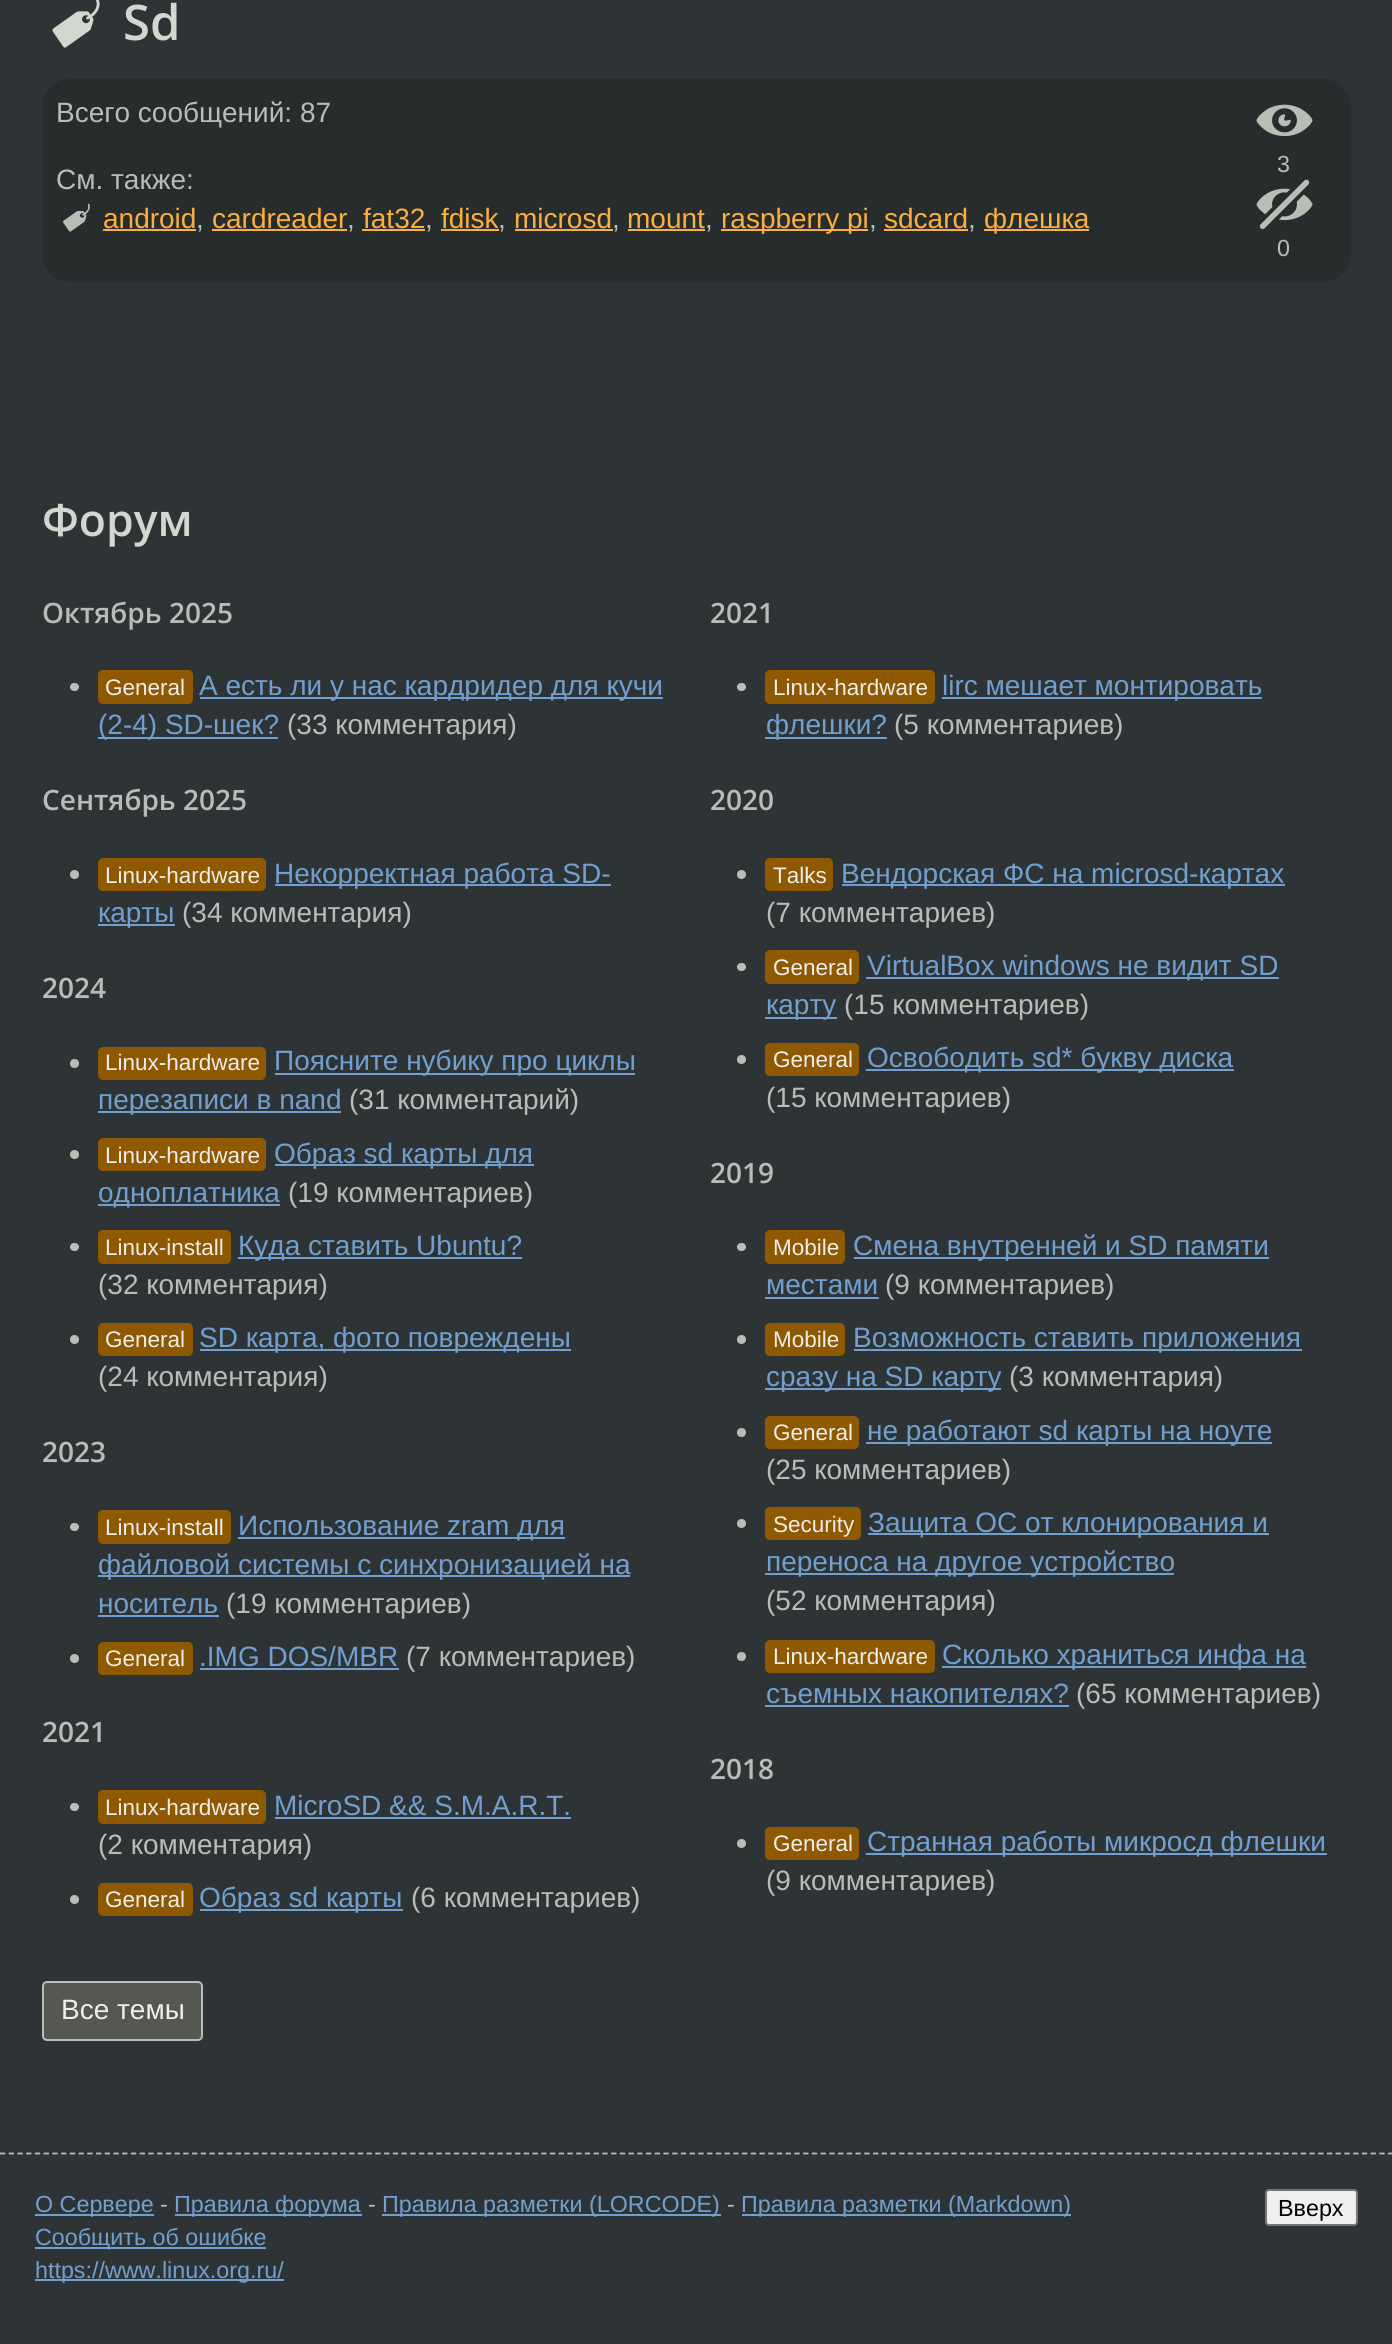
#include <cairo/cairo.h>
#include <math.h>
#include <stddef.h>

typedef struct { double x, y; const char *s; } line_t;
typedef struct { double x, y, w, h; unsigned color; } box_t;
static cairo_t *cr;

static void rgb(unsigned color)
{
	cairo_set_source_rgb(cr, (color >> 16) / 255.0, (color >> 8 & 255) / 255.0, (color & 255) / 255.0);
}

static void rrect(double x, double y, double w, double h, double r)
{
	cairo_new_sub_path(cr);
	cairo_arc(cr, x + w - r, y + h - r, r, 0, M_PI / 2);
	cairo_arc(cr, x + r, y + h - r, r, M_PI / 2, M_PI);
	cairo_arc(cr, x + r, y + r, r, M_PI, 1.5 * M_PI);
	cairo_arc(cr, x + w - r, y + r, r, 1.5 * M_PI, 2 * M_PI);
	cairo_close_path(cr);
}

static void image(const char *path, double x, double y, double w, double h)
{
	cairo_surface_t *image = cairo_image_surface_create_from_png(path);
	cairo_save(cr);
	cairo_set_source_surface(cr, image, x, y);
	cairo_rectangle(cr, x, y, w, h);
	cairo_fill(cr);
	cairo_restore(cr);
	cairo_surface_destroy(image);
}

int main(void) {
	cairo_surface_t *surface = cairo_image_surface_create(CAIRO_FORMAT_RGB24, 1392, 2344);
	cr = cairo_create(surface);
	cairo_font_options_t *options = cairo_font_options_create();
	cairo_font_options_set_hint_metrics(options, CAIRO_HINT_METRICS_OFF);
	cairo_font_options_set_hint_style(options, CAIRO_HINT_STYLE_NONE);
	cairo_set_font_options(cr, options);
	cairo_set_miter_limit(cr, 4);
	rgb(0x2e3436);
	cairo_paint(cr);
	image("img/1.png", 52, 0, 48, 48);
	rgb(0x272c2d);
	rrect(42, 79, 1309, 203, 28);
	cairo_fill(cr);
	image("img/2.png", 1256, 104, 57, 33);
	image("img/3.png", 1256, 179, 57, 51);
	image("img/4.png", 63, 203, 27, 29);
	{
		static const box_t items[] = {
			{103, 229, 93, 2, 0xfcaf3e},
			{212, 229, 135, 2, 0xfcaf3e},
			{362, 229, 63, 2, 0xfcaf3e},
			{441, 229, 58, 2, 0xfcaf3e},
			{515, 229, 98, 2, 0xfcaf3e},
			{628, 229, 77, 2, 0xfcaf3e},
			{721, 229, 147, 2, 0xfcaf3e},
			{884, 229, 84, 2, 0xfcaf3e},
			{984, 229, 105, 2, 0xfcaf3e},
		};
		for (size_t i = 0; i < sizeof items / sizeof *items; i++) {
			rgb(items[i].color);
			cairo_rectangle(cr, items[i].x, items[i].y, items[i].w, items[i].h);
			cairo_fill(cr);
		}
	}
	rgb(0xbabdb6);
	rrect(70, 683, 9, 8, 4);
	cairo_fill(cr);
	rgb(0x8f5902);
	rrect(98, 670, 95, 34, 5);
	cairo_fill(cr);
	rgb(0x729fcf);
	cairo_rectangle(cr, 200, 697, 463, 2);
	cairo_fill(cr);
	cairo_rectangle(cr, 98, 737, 180, 2);
	cairo_fill(cr);
	rgb(0xbabdb6);
	cairo_arc(cr, 74.5, 874.5, 4.5, 0, 2 * M_PI);
	cairo_fill(cr);
	rgb(0x8f5902);
	rrect(98, 858, 168, 33, 5);
	cairo_fill(cr);
	rgb(0x729fcf);
	cairo_rectangle(cr, 275, 884, 336, 2);
	cairo_fill(cr);
	cairo_rectangle(cr, 98, 924, 77, 2);
	cairo_fill(cr);
	rgb(0xbabdb6);
	cairo_arc(cr, 74.5, 1063.5, 4.5, 0, 2 * M_PI);
	cairo_fill(cr);
	rgb(0x8f5902);
	rrect(98, 1047, 168, 33, 5);
	cairo_fill(cr);
	rgb(0x729fcf);
	cairo_rectangle(cr, 275, 1073, 360, 2);
	cairo_fill(cr);
	cairo_rectangle(cr, 98, 1111, 243, 2);
	cairo_fill(cr);
	rgb(0xbabdb6);
	cairo_arc(cr, 74.5, 1154.5, 4.5, 0, 2 * M_PI);
	cairo_fill(cr);
	rgb(0x8f5902);
	rrect(98, 1138, 168, 33, 5);
	cairo_fill(cr);
	rgb(0x729fcf);
	cairo_rectangle(cr, 275, 1164, 259, 2);
	cairo_fill(cr);
	cairo_rectangle(cr, 98, 1204, 182, 2);
	cairo_fill(cr);
	rgb(0xbabdb6);
	rrect(70, 1243, 9, 8, 4);
	cairo_fill(cr);
	rgb(0x8f5902);
	rrect(98, 1230, 133, 34, 5);
	cairo_fill(cr);
	rgb(0x729fcf);
	cairo_rectangle(cr, 238, 1257, 284, 2);
	cairo_fill(cr);
	rgb(0xbabdb6);
	cairo_arc(cr, 74.5, 1339.5, 4.5, 0, 2 * M_PI);
	cairo_fill(cr);
	rgb(0x8f5902);
	rrect(98, 1323, 95, 33, 5);
	cairo_fill(cr);
	rgb(0x729fcf);
	cairo_rectangle(cr, 200, 1349, 371, 2);
	cairo_fill(cr);
	rgb(0xbabdb6);
	rrect(70, 1523, 9, 8, 4);
	cairo_fill(cr);
	rgb(0x8f5902);
	rrect(98, 1510, 133, 34, 5);
	cairo_fill(cr);
	{
		static const box_t items[] = {
			{238, 1537, 327, 2, 0x729fcf},
			{98, 1575, 532, 2, 0x729fcf},
			{98, 1615, 121, 2, 0x729fcf},
		};
		for (size_t i = 0; i < sizeof items / sizeof *items; i++) {
			rgb(items[i].color);
			cairo_rectangle(cr, items[i].x, items[i].y, items[i].w, items[i].h);
			cairo_fill(cr);
		}
	}
	rgb(0xbabdb6);
	cairo_arc(cr, 74.5, 1658.5, 4.5, 0, 2 * M_PI);
	cairo_fill(cr);
	rgb(0x8f5902);
	rrect(98, 1642, 95, 33, 5);
	cairo_fill(cr);
	rgb(0x729fcf);
	cairo_rectangle(cr, 200, 1668, 199, 2);
	cairo_fill(cr);
	rgb(0xbabdb6);
	rrect(70, 1803, 9, 8, 4);
	cairo_fill(cr);
	rgb(0x8f5902);
	rrect(98, 1790, 168, 34, 5);
	cairo_fill(cr);
	rgb(0x729fcf);
	cairo_rectangle(cr, 275, 1817, 296, 2);
	cairo_fill(cr);
	rgb(0xbabdb6);
	cairo_arc(cr, 74.5, 1899.5, 4.5, 0, 2 * M_PI);
	cairo_fill(cr);
	rgb(0x8f5902);
	rrect(98, 1883, 95, 33, 5);
	cairo_fill(cr);
	rgb(0x729fcf);
	cairo_rectangle(cr, 200, 1909, 203, 2);
	cairo_fill(cr);
	rgb(0xbabdb6);
	rrect(737, 683, 9, 8, 4);
	cairo_fill(cr);
	rgb(0x8f5902);
	rrect(765, 670, 170, 34, 5);
	cairo_fill(cr);
	rgb(0x729fcf);
	cairo_rectangle(cr, 942, 697, 320, 2);
	cairo_fill(cr);
	cairo_rectangle(cr, 765, 737, 122, 2);
	cairo_fill(cr);
	rgb(0xbabdb6);
	cairo_arc(cr, 741.5, 874.5, 4.5, 0, 2 * M_PI);
	cairo_fill(cr);
	rgb(0x8f5902);
	rrect(765, 858, 68, 33, 5);
	cairo_fill(cr);
	rgb(0x729fcf);
	cairo_rectangle(cr, 842, 884, 443, 2);
	cairo_fill(cr);
	rgb(0xbabdb6);
	rrect(737, 963, 9, 8, 4);
	cairo_fill(cr);
	rgb(0x8f5902);
	rrect(765, 950, 94, 34, 5);
	cairo_fill(cr);
	rgb(0x729fcf);
	cairo_rectangle(cr, 866, 977, 413, 2);
	cairo_fill(cr);
	cairo_rectangle(cr, 765, 1017, 72, 2);
	cairo_fill(cr);
	rgb(0xbabdb6);
	cairo_arc(cr, 741.5, 1059.5, 4.5, 0, 2 * M_PI);
	cairo_fill(cr);
	rgb(0x8f5902);
	rrect(765, 1043, 94, 33, 5);
	cairo_fill(cr);
	rgb(0x729fcf);
	cairo_rectangle(cr, 866, 1069, 368, 2);
	cairo_fill(cr);
	rgb(0xbabdb6);
	rrect(737, 1243, 9, 8, 4);
	cairo_fill(cr);
	rgb(0x8f5902);
	rrect(765, 1230, 80, 34, 5);
	cairo_fill(cr);
	rgb(0x729fcf);
	cairo_rectangle(cr, 854, 1257, 415, 2);
	cairo_fill(cr);
	cairo_rectangle(cr, 765, 1297, 114, 2);
	cairo_fill(cr);
	rgb(0xbabdb6);
	cairo_arc(cr, 741.5, 1339.5, 4.5, 0, 2 * M_PI);
	cairo_fill(cr);
	rgb(0x8f5902);
	rrect(765, 1323, 80, 33, 5);
	cairo_fill(cr);
	rgb(0x729fcf);
	cairo_rectangle(cr, 854, 1349, 448, 2);
	cairo_fill(cr);
	cairo_rectangle(cr, 765, 1388, 236, 2);
	cairo_fill(cr);
	rgb(0xbabdb6);
	cairo_arc(cr, 741.5, 1432.5, 4.5, 0, 2 * M_PI);
	cairo_fill(cr);
	rgb(0x8f5902);
	rrect(765, 1416, 94, 33, 5);
	cairo_fill(cr);
	rgb(0x729fcf);
	cairo_rectangle(cr, 866, 1442, 406, 2);
	cairo_fill(cr);
	rgb(0xbabdb6);
	cairo_arc(cr, 741.5, 1523.5, 4.5, 0, 2 * M_PI);
	cairo_fill(cr);
	rgb(0x8f5902);
	rrect(765, 1507, 96, 33, 5);
	cairo_fill(cr);
	rgb(0x729fcf);
	cairo_rectangle(cr, 868, 1533, 401, 2);
	cairo_fill(cr);
	cairo_rectangle(cr, 765, 1573, 409, 2);
	cairo_fill(cr);
	rgb(0xbabdb6);
	cairo_arc(cr, 741.5, 1656.5, 4.5, 0, 2 * M_PI);
	cairo_fill(cr);
	rgb(0x8f5902);
	rrect(765, 1640, 170, 33, 5);
	cairo_fill(cr);
	rgb(0x729fcf);
	cairo_rectangle(cr, 942, 1666, 364, 2);
	cairo_fill(cr);
	cairo_rectangle(cr, 765, 1705, 304, 2);
	cairo_fill(cr);
	rgb(0xbabdb6);
	cairo_arc(cr, 741.5, 1843.5, 4.5, 0, 2 * M_PI);
	cairo_fill(cr);
	rgb(0x8f5902);
	rrect(765, 1827, 94, 33, 5);
	cairo_fill(cr);
	rgb(0x729fcf);
	cairo_rectangle(cr, 866, 1853, 461, 2);
	cairo_fill(cr);
	rgb(0x555753);
	rrect(43, 1982, 159, 58, 4);
	cairo_fill_preserve(cr);
	rgb(0xbabdb6);
	cairo_stroke(cr);
	cairo_new_path(cr);
	cairo_move_to(cr, 0, 2153.5);
	cairo_line_to(cr, 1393, 2153.5);
	cairo_set_line_width(cr, 1.8);
	cairo_set_dash(cr, (double[]){5.25, 3.48}, 2, 0);
	cairo_stroke(cr);
	{
		static const box_t items[] = {
			{35, 2214, 119, 2, 0x729fcf},
			{175, 2214, 187, 2, 0x729fcf},
			{382, 2214, 339, 2, 0x729fcf},
			{742, 2214, 329, 2, 0x729fcf},
			{35, 2247, 231, 2, 0x729fcf},
			{35, 2279, 249, 2, 0x729fcf},
		};
		for (size_t i = 0; i < sizeof items / sizeof *items; i++) {
			rgb(items[i].color);
			cairo_rectangle(cr, items[i].x, items[i].y, items[i].w, items[i].h);
			cairo_fill(cr);
		}
	}
	rgb(0xefefef);
	rrect(1266, 2190, 91, 35, 3);
	cairo_fill_preserve(cr);
	rgb(0x767676);
	cairo_set_line_width(cr, 2);
	cairo_set_dash(cr, NULL, 0, 0);
	cairo_stroke(cr);
	cairo_select_font_face(cr, "Open Sans SemiBold", CAIRO_FONT_SLANT_NORMAL, CAIRO_FONT_WEIGHT_NORMAL);
	cairo_set_font_size(cr, 49);
	rgb(0xd3d7cf);
	cairo_move_to(cr, 123, 40);
	cairo_show_text(cr, "Sd");
	cairo_select_font_face(cr, "Liberation Sans", CAIRO_FONT_SLANT_NORMAL, CAIRO_FONT_WEIGHT_NORMAL);
	cairo_set_font_size(cr, 28);
	rgb(0xbabdb6);
	cairo_move_to(cr, 56, 122);
	cairo_show_text(cr, "Всего сообщений: 87");
	cairo_move_to(cr, 56, 189);
	cairo_show_text(cr, "См. также:");
	cairo_set_font_size(cr, 23.3);
	cairo_move_to(cr, 1277, 172);
	cairo_show_text(cr, "3");
	cairo_move_to(cr, 1277, 256);
	cairo_show_text(cr, "0");
	cairo_set_font_size(cr, 28);
	rgb(0xfcaf3e);
	cairo_move_to(cr, 103, 228);
	cairo_show_text(cr, "android");
	rgb(0xbabdb6);
	cairo_move_to(cr, 196, 228);
	cairo_show_text(cr, ",");
	rgb(0xfcaf3e);
	cairo_move_to(cr, 212, 228);
	cairo_show_text(cr, "cardreader");
	rgb(0xbabdb6);
	cairo_move_to(cr, 347, 228);
	cairo_show_text(cr, ",");
	rgb(0xfcaf3e);
	cairo_move_to(cr, 363, 228);
	cairo_show_text(cr, "fat32");
	rgb(0xbabdb6);
	cairo_move_to(cr, 425, 228);
	cairo_show_text(cr, ",");
	rgb(0xfcaf3e);
	cairo_move_to(cr, 441, 228);
	cairo_show_text(cr, "fdisk");
	rgb(0xbabdb6);
	cairo_move_to(cr, 498, 228);
	cairo_show_text(cr, ",");
	rgb(0xfcaf3e);
	cairo_move_to(cr, 514, 228);
	cairo_show_text(cr, "microsd");
	rgb(0xbabdb6);
	cairo_move_to(cr, 612, 228);
	cairo_show_text(cr, ",");
	rgb(0xfcaf3e);
	cairo_move_to(cr, 627, 228);
	cairo_show_text(cr, "mount");
	rgb(0xbabdb6);
	cairo_move_to(cr, 705, 228);
	cairo_show_text(cr, ",");
	rgb(0xfcaf3e);
	cairo_move_to(cr, 721, 228);
	cairo_show_text(cr, "raspberry pi");
	rgb(0xbabdb6);
	cairo_move_to(cr, 869, 228);
	cairo_show_text(cr, ",");
	rgb(0xfcaf3e);
	cairo_move_to(cr, 884, 228);
	cairo_show_text(cr, "sdcard");
	rgb(0xbabdb6);
	cairo_move_to(cr, 968, 228);
	cairo_show_text(cr, ",");
	rgb(0xfcaf3e);
	cairo_move_to(cr, 984, 228);
	cairo_show_text(cr, "флешка");
	cairo_select_font_face(cr, "Open Sans SemiBold", CAIRO_FONT_SLANT_NORMAL, CAIRO_FONT_WEIGHT_NORMAL);
	cairo_set_font_size(cr, 44.5);
	rgb(0xd3d7cf);
	cairo_move_to(cr, 42, 536);
	cairo_show_text(cr, "Форум");
	cairo_set_font_size(cr, 28);
	rgb(0xbabdb6);
	cairo_move_to(cr, 42, 623);
	cairo_show_text(cr, "Октябрь 2025");
	cairo_select_font_face(cr, "Liberation Sans", CAIRO_FONT_SLANT_NORMAL, CAIRO_FONT_WEIGHT_NORMAL);
	cairo_set_font_size(cr, 22.5);
	rgb(0xeeeeec);
	cairo_move_to(cr, 105, 695);
	cairo_show_text(cr, "General");
	cairo_set_font_size(cr, 28);
	rgb(0x729fcf);
	cairo_move_to(cr, 199, 695);
	cairo_show_text(cr, "А есть ли у нас кардридер для кучи");
	cairo_move_to(cr, 98, 734);
	cairo_show_text(cr, "(2-4) SD-шек?");
	rgb(0xbabdb6);
	cairo_move_to(cr, 287, 734);
	cairo_show_text(cr, "(33 комментария)");
	cairo_select_font_face(cr, "Open Sans SemiBold", CAIRO_FONT_SLANT_NORMAL, CAIRO_FONT_WEIGHT_NORMAL);
	cairo_move_to(cr, 42, 810);
	cairo_show_text(cr, "Сентябрь 2025");
	cairo_select_font_face(cr, "Liberation Sans", CAIRO_FONT_SLANT_NORMAL, CAIRO_FONT_WEIGHT_NORMAL);
	cairo_set_font_size(cr, 22.5);
	rgb(0xeeeeec);
	cairo_move_to(cr, 105, 883);
	cairo_show_text(cr, "Linux-hardware");
	cairo_set_font_size(cr, 28);
	rgb(0x729fcf);
	cairo_move_to(cr, 274, 883);
	cairo_show_text(cr, "Некорректная работа SD-");
	cairo_move_to(cr, 98, 922);
	cairo_show_text(cr, "карты");
	rgb(0xbabdb6);
	cairo_move_to(cr, 182, 922);
	cairo_show_text(cr, "(34 комментария)");
	cairo_select_font_face(cr, "Open Sans SemiBold", CAIRO_FONT_SLANT_NORMAL, CAIRO_FONT_WEIGHT_NORMAL);
	cairo_move_to(cr, 42, 998);
	cairo_show_text(cr, "2024");
	cairo_select_font_face(cr, "Liberation Sans", CAIRO_FONT_SLANT_NORMAL, CAIRO_FONT_WEIGHT_NORMAL);
	cairo_set_font_size(cr, 22.5);
	rgb(0xeeeeec);
	cairo_move_to(cr, 105, 1070);
	cairo_show_text(cr, "Linux-hardware");
	cairo_set_font_size(cr, 28);
	rgb(0x729fcf);
	cairo_move_to(cr, 274, 1070);
	cairo_show_text(cr, "Поясните нубику про циклы");
	cairo_move_to(cr, 98, 1109);
	cairo_show_text(cr, "перезаписи в nand");
	rgb(0xbabdb6);
	cairo_move_to(cr, 349, 1109);
	cairo_show_text(cr, "(31 комментарий)");
	cairo_set_font_size(cr, 22.5);
	rgb(0xeeeeec);
	cairo_move_to(cr, 105, 1163);
	cairo_show_text(cr, "Linux-hardware");
	cairo_set_font_size(cr, 28);
	rgb(0x729fcf);
	cairo_move_to(cr, 274, 1163);
	cairo_show_text(cr, "Образ sd карты для");
	cairo_move_to(cr, 98, 1202);
	cairo_show_text(cr, "одноплатника");
	rgb(0xbabdb6);
	cairo_move_to(cr, 288, 1202);
	cairo_show_text(cr, "(19 комментариев)");
	cairo_set_font_size(cr, 22.5);
	rgb(0xeeeeec);
	cairo_move_to(cr, 105, 1255);
	cairo_show_text(cr, "Linux-install");
	cairo_set_font_size(cr, 28);
	rgb(0x729fcf);
	cairo_move_to(cr, 238, 1255);
	cairo_show_text(cr, "Куда ставить Ubuntu?");
	rgb(0xbabdb6);
	cairo_move_to(cr, 98, 1294);
	cairo_show_text(cr, "(32 комментария)");
	cairo_set_font_size(cr, 22.5);
	rgb(0xeeeeec);
	cairo_move_to(cr, 105, 1347);
	cairo_show_text(cr, "General");
	cairo_set_font_size(cr, 28);
	rgb(0x729fcf);
	cairo_move_to(cr, 199, 1347);
	cairo_show_text(cr, "SD карта, фото повреждены");
	rgb(0xbabdb6);
	cairo_move_to(cr, 98, 1386);
	cairo_show_text(cr, "(24 комментария)");
	cairo_select_font_face(cr, "Open Sans SemiBold", CAIRO_FONT_SLANT_NORMAL, CAIRO_FONT_WEIGHT_NORMAL);
	cairo_move_to(cr, 42, 1462);
	cairo_show_text(cr, "2023");
	cairo_select_font_face(cr, "Liberation Sans", CAIRO_FONT_SLANT_NORMAL, CAIRO_FONT_WEIGHT_NORMAL);
	cairo_set_font_size(cr, 22.5);
	rgb(0xeeeeec);
	cairo_move_to(cr, 105, 1535);
	cairo_show_text(cr, "Linux-install");
	cairo_set_font_size(cr, 28);
	rgb(0x729fcf);
	{
		static const line_t items[] = {
			{238, 1535, "Использование zram для"},
			{98, 1574, "файловой системы с синхронизацией на"},
			{98, 1613, "носитель"},
		};
		for (size_t i = 0; i < sizeof items / sizeof *items; i++) {
			cairo_move_to(cr, items[i].x, items[i].y);
			cairo_show_text(cr, items[i].s);
		}
	}
	rgb(0xbabdb6);
	cairo_move_to(cr, 226, 1613);
	cairo_show_text(cr, "(19 комментариев)");
	cairo_set_font_size(cr, 22.5);
	rgb(0xeeeeec);
	cairo_move_to(cr, 105, 1666);
	cairo_show_text(cr, "General");
	cairo_set_font_size(cr, 28);
	rgb(0x729fcf);
	cairo_move_to(cr, 199, 1666);
	cairo_show_text(cr, ".IMG DOS/MBR");
	rgb(0xbabdb6);
	cairo_move_to(cr, 406, 1666);
	cairo_show_text(cr, "(7 комментариев)");
	cairo_select_font_face(cr, "Open Sans SemiBold", CAIRO_FONT_SLANT_NORMAL, CAIRO_FONT_WEIGHT_NORMAL);
	cairo_move_to(cr, 42, 1742);
	cairo_show_text(cr, "2021");
	cairo_select_font_face(cr, "Liberation Sans", CAIRO_FONT_SLANT_NORMAL, CAIRO_FONT_WEIGHT_NORMAL);
	cairo_set_font_size(cr, 22.5);
	rgb(0xeeeeec);
	cairo_move_to(cr, 105, 1815);
	cairo_show_text(cr, "Linux-hardware");
	cairo_set_font_size(cr, 28);
	rgb(0x729fcf);
	cairo_move_to(cr, 274, 1815);
	cairo_show_text(cr, "MicroSD && S.M.A.R.T.");
	rgb(0xbabdb6);
	cairo_move_to(cr, 98, 1854);
	cairo_show_text(cr, "(2 комментария)");
	cairo_set_font_size(cr, 22.5);
	rgb(0xeeeeec);
	cairo_move_to(cr, 105, 1907);
	cairo_show_text(cr, "General");
	cairo_set_font_size(cr, 28);
	rgb(0x729fcf);
	cairo_move_to(cr, 199, 1907);
	cairo_show_text(cr, "Образ sd карты");
	rgb(0xbabdb6);
	cairo_move_to(cr, 411, 1907);
	cairo_show_text(cr, "(6 комментариев)");
	cairo_select_font_face(cr, "Open Sans SemiBold", CAIRO_FONT_SLANT_NORMAL, CAIRO_FONT_WEIGHT_NORMAL);
	cairo_move_to(cr, 710, 623);
	cairo_show_text(cr, "2021");
	cairo_select_font_face(cr, "Liberation Sans", CAIRO_FONT_SLANT_NORMAL, CAIRO_FONT_WEIGHT_NORMAL);
	cairo_set_font_size(cr, 22.5);
	rgb(0xeeeeec);
	cairo_move_to(cr, 773, 695);
	cairo_show_text(cr, "Linux-hardware");
	cairo_set_font_size(cr, 28);
	rgb(0x729fcf);
	cairo_move_to(cr, 942, 695);
	cairo_show_text(cr, "lirc мешает монтировать");
	cairo_move_to(cr, 766, 734);
	cairo_show_text(cr, "флешки?");
	rgb(0xbabdb6);
	cairo_move_to(cr, 894, 734);
	cairo_show_text(cr, "(5 комментариев)");
	cairo_select_font_face(cr, "Open Sans SemiBold", CAIRO_FONT_SLANT_NORMAL, CAIRO_FONT_WEIGHT_NORMAL);
	cairo_move_to(cr, 710, 810);
	cairo_show_text(cr, "2020");
	cairo_select_font_face(cr, "Liberation Sans", CAIRO_FONT_SLANT_NORMAL, CAIRO_FONT_WEIGHT_NORMAL);
	cairo_set_font_size(cr, 22.5);
	rgb(0xeeeeec);
	cairo_move_to(cr, 773, 883);
	cairo_show_text(cr, "Talks");
	cairo_set_font_size(cr, 28);
	rgb(0x729fcf);
	cairo_move_to(cr, 841, 883);
	cairo_show_text(cr, "Вендорская ФС на microsd-картах");
	rgb(0xbabdb6);
	cairo_move_to(cr, 766, 922);
	cairo_show_text(cr, "(7 комментариев)");
	cairo_set_font_size(cr, 22.5);
	rgb(0xeeeeec);
	cairo_move_to(cr, 773, 975);
	cairo_show_text(cr, "General");
	cairo_set_font_size(cr, 28);
	rgb(0x729fcf);
	cairo_move_to(cr, 867, 975);
	cairo_show_text(cr, "VirtualBox windows не видит SD");
	cairo_move_to(cr, 766, 1014);
	cairo_show_text(cr, "карту");
	rgb(0xbabdb6);
	cairo_move_to(cr, 844, 1014);
	cairo_show_text(cr, "(15 комментариев)");
	cairo_set_font_size(cr, 22.5);
	rgb(0xeeeeec);
	cairo_move_to(cr, 773, 1067);
	cairo_show_text(cr, "General");
	cairo_set_font_size(cr, 28);
	rgb(0x729fcf);
	cairo_move_to(cr, 867, 1067);
	cairo_show_text(cr, "Освободить sd* букву диска");
	rgb(0xbabdb6);
	cairo_move_to(cr, 766, 1107);
	cairo_show_text(cr, "(15 комментариев)");
	cairo_select_font_face(cr, "Open Sans SemiBold", CAIRO_FONT_SLANT_NORMAL, CAIRO_FONT_WEIGHT_NORMAL);
	cairo_move_to(cr, 710, 1183);
	cairo_show_text(cr, "2019");
	cairo_select_font_face(cr, "Liberation Sans", CAIRO_FONT_SLANT_NORMAL, CAIRO_FONT_WEIGHT_NORMAL);
	cairo_set_font_size(cr, 22.5);
	rgb(0xeeeeec);
	cairo_move_to(cr, 773, 1255);
	cairo_show_text(cr, "Mobile");
	cairo_set_font_size(cr, 28);
	rgb(0x729fcf);
	cairo_move_to(cr, 853, 1255);
	cairo_show_text(cr, "Смена внутренней и SD памяти");
	cairo_move_to(cr, 766, 1294);
	cairo_show_text(cr, "местами");
	rgb(0xbabdb6);
	cairo_move_to(cr, 885, 1294);
	cairo_show_text(cr, "(9 комментариев)");
	cairo_set_font_size(cr, 22.5);
	rgb(0xeeeeec);
	cairo_move_to(cr, 773, 1347);
	cairo_show_text(cr, "Mobile");
	cairo_set_font_size(cr, 28);
	rgb(0x729fcf);
	cairo_move_to(cr, 853, 1347);
	cairo_show_text(cr, "Возможность ставить приложения");
	cairo_move_to(cr, 766, 1386);
	cairo_show_text(cr, "сразу на SD карту");
	rgb(0xbabdb6);
	cairo_move_to(cr, 1009, 1386);
	cairo_show_text(cr, "(3 комментария)");
	cairo_set_font_size(cr, 22.5);
	rgb(0xeeeeec);
	cairo_move_to(cr, 773, 1440);
	cairo_show_text(cr, "General");
	cairo_set_font_size(cr, 28);
	rgb(0x729fcf);
	cairo_move_to(cr, 867, 1440);
	cairo_show_text(cr, "не работают sd карты на ноуте");
	rgb(0xbabdb6);
	cairo_move_to(cr, 766, 1479);
	cairo_show_text(cr, "(25 комментариев)");
	cairo_set_font_size(cr, 22.5);
	rgb(0xeeeeec);
	cairo_move_to(cr, 773, 1532);
	cairo_show_text(cr, "Security");
	cairo_set_font_size(cr, 28);
	rgb(0x729fcf);
	cairo_move_to(cr, 868, 1532);
	cairo_show_text(cr, "Защита ОС от клонирования и");
	cairo_move_to(cr, 766, 1571);
	cairo_show_text(cr, "переноса на другое устройство");
	rgb(0xbabdb6);
	cairo_move_to(cr, 766, 1610);
	cairo_show_text(cr, "(52 комментария)");
	cairo_set_font_size(cr, 22.5);
	rgb(0xeeeeec);
	cairo_move_to(cr, 773, 1664);
	cairo_show_text(cr, "Linux-hardware");
	cairo_set_font_size(cr, 28);
	rgb(0x729fcf);
	cairo_move_to(cr, 942, 1664);
	cairo_show_text(cr, "Сколько храниться инфа на");
	cairo_move_to(cr, 766, 1703);
	cairo_show_text(cr, "съемных накопителях?");
	rgb(0xbabdb6);
	cairo_move_to(cr, 1076, 1703);
	cairo_show_text(cr, "(65 комментариев)");
	cairo_select_font_face(cr, "Open Sans SemiBold", CAIRO_FONT_SLANT_NORMAL, CAIRO_FONT_WEIGHT_NORMAL);
	cairo_move_to(cr, 710, 1779);
	cairo_show_text(cr, "2018");
	cairo_select_font_face(cr, "Liberation Sans", CAIRO_FONT_SLANT_NORMAL, CAIRO_FONT_WEIGHT_NORMAL);
	cairo_set_font_size(cr, 22.5);
	rgb(0xeeeeec);
	cairo_move_to(cr, 773, 1851);
	cairo_show_text(cr, "General");
	cairo_set_font_size(cr, 28);
	rgb(0x729fcf);
	cairo_move_to(cr, 867, 1851);
	cairo_show_text(cr, "Странная работы микросд флешки");
	rgb(0xbabdb6);
	cairo_move_to(cr, 766, 1890);
	cairo_show_text(cr, "(9 комментариев)");
	rgb(0xeeeeec);
	cairo_move_to(cr, 61, 2019);
	cairo_show_text(cr, "Все темы");
	cairo_set_font_size(cr, 23.3);
	rgb(0x729fcf);
	cairo_move_to(cr, 35, 2212);
	cairo_show_text(cr, "О Сервере");
	rgb(0xbabdb6);
	cairo_move_to(cr, 160, 2212);
	cairo_show_text(cr, "-");
	rgb(0x729fcf);
	cairo_move_to(cr, 174, 2212);
	cairo_show_text(cr, "Правила форума");
	rgb(0xbabdb6);
	cairo_move_to(cr, 368, 2212);
	cairo_show_text(cr, "-");
	rgb(0x729fcf);
	cairo_move_to(cr, 382, 2212);
	cairo_show_text(cr, "Правила разметки (LORCODE)");
	rgb(0xbabdb6);
	cairo_move_to(cr, 727, 2212);
	cairo_show_text(cr, "-");
	rgb(0x729fcf);
	{
		static const line_t items[] = {
			{741, 2212, "Правила разметки (Markdown)"},
			{35, 2245, "Сообщить об ошибке"},
			{35, 2278, "https://www.linux.org.ru/"},
		};
		for (size_t i = 0; i < sizeof items / sizeof *items; i++) {
			cairo_move_to(cr, items[i].x, items[i].y);
			cairo_show_text(cr, items[i].s);
		}
	}
	rgb(0x000000);
	cairo_move_to(cr, 1278, 2216);
	cairo_show_text(cr, "Вверх");
	cairo_surface_write_to_png(surface, "page.png");
	cairo_font_options_destroy(options);
	cairo_destroy(cr);
	cairo_surface_destroy(surface);
	return 0;
}
